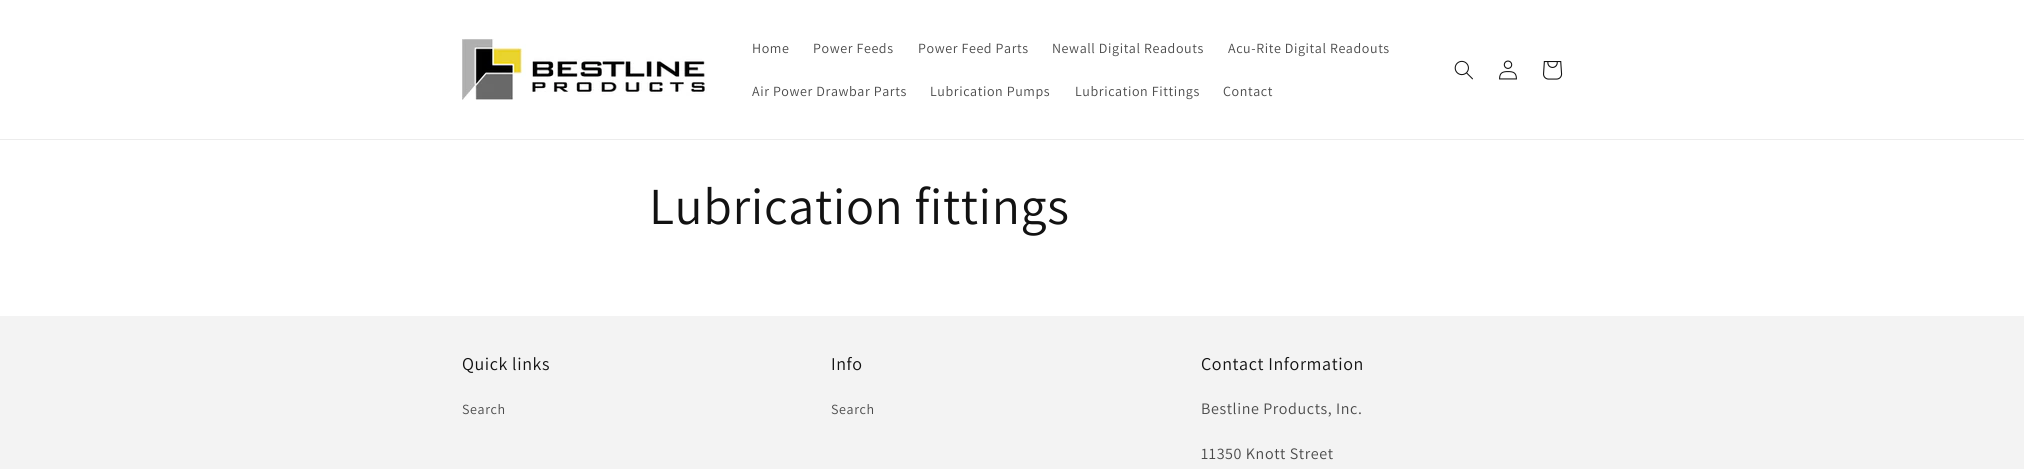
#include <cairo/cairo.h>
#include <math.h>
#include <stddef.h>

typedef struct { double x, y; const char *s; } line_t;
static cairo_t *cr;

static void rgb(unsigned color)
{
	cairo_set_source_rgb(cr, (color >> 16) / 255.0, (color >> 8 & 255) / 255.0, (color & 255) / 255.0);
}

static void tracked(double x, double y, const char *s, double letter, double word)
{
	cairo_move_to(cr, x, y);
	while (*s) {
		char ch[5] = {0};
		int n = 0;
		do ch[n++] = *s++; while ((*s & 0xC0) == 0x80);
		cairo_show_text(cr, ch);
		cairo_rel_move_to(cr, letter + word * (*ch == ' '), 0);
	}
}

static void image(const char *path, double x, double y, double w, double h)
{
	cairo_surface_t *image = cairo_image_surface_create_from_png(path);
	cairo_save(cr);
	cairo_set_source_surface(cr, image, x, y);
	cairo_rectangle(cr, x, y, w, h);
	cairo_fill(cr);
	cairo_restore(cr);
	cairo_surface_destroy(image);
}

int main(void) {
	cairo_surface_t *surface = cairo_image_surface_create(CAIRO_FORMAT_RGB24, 2024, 469);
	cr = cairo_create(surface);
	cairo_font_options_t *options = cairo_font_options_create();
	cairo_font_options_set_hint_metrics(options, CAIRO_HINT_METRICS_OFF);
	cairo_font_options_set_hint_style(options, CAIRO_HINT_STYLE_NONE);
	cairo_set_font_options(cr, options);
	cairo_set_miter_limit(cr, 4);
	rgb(0xffffff);
	cairo_paint(cr);
	rgb(0xececec);
	cairo_rectangle(cr, 0, 139, 2024, 1);
	cairo_fill(cr);
	image("img/1.png", 462, 39, 245, 61);
	image("img/2.png", 1454, 60, 19, 20);
	image("img/3.png", 1499, 60, 18, 20);
	image("img/4.png", 1543, 61, 20, 19);
	rgb(0xf3f3f3);
	cairo_rectangle(cr, 0, 316, 2024, 153);
	cairo_fill(cr);
	cairo_select_font_face(cr, "Assistant", CAIRO_FONT_SLANT_NORMAL, CAIRO_FONT_WEIGHT_NORMAL);
	cairo_set_font_size(cr, 14);
	rgb(0x4a4a4a);
	{
		static const line_t items[] = {
			{752, 53, "Home"},
			{813, 53, "Power Feeds"},
			{918, 53, "Power Feed Parts"},
			{1052, 53, "Newall Digital Readouts"},
			{1228, 53, "Acu-Rite Digital Readouts"},
			{752, 96, "Air Power Drawbar Parts"},
			{930, 96, "Lubrication Pumps"},
			{1075, 96, "Lubrication Fittings"},
			{1223, 96, "Contact"},
		};
		for (size_t i = 0; i < sizeof items / sizeof *items; i++) {
			tracked(items[i].x, items[i].y, items[i].s, 0.6, 0);
		}
	}
	cairo_set_font_size(cr, 52);
	rgb(0x121212);
	tracked(649, 224, "Lubrication fittings", 0.6, 0);
	cairo_set_font_size(cr, 18);
	tracked(462, 370, "Quick links", 0.6, 0);
	cairo_set_font_size(cr, 14);
	rgb(0x4a4a4a);
	tracked(462, 414, "Search", 0.6, 0);
	cairo_set_font_size(cr, 18);
	rgb(0x121212);
	tracked(831, 370, "Info", 0.6, 0);
	cairo_set_font_size(cr, 14);
	rgb(0x4a4a4a);
	tracked(831, 414, "Search", 0.6, 0);
	cairo_set_font_size(cr, 18);
	rgb(0x121212);
	tracked(1201, 370, "Contact Information", 0.6, 0);
	cairo_set_font_size(cr, 16);
	rgb(0x4a4a4a);
	tracked(1201, 414, "Bestline Products, Inc.", 0.6, 0);
	tracked(1201, 459, "11350 Knott Street", 0.6, 0);
	cairo_surface_write_to_png(surface, "page.png");
	cairo_font_options_destroy(options);
	cairo_destroy(cr);
	cairo_surface_destroy(surface);
	return 0;
}
